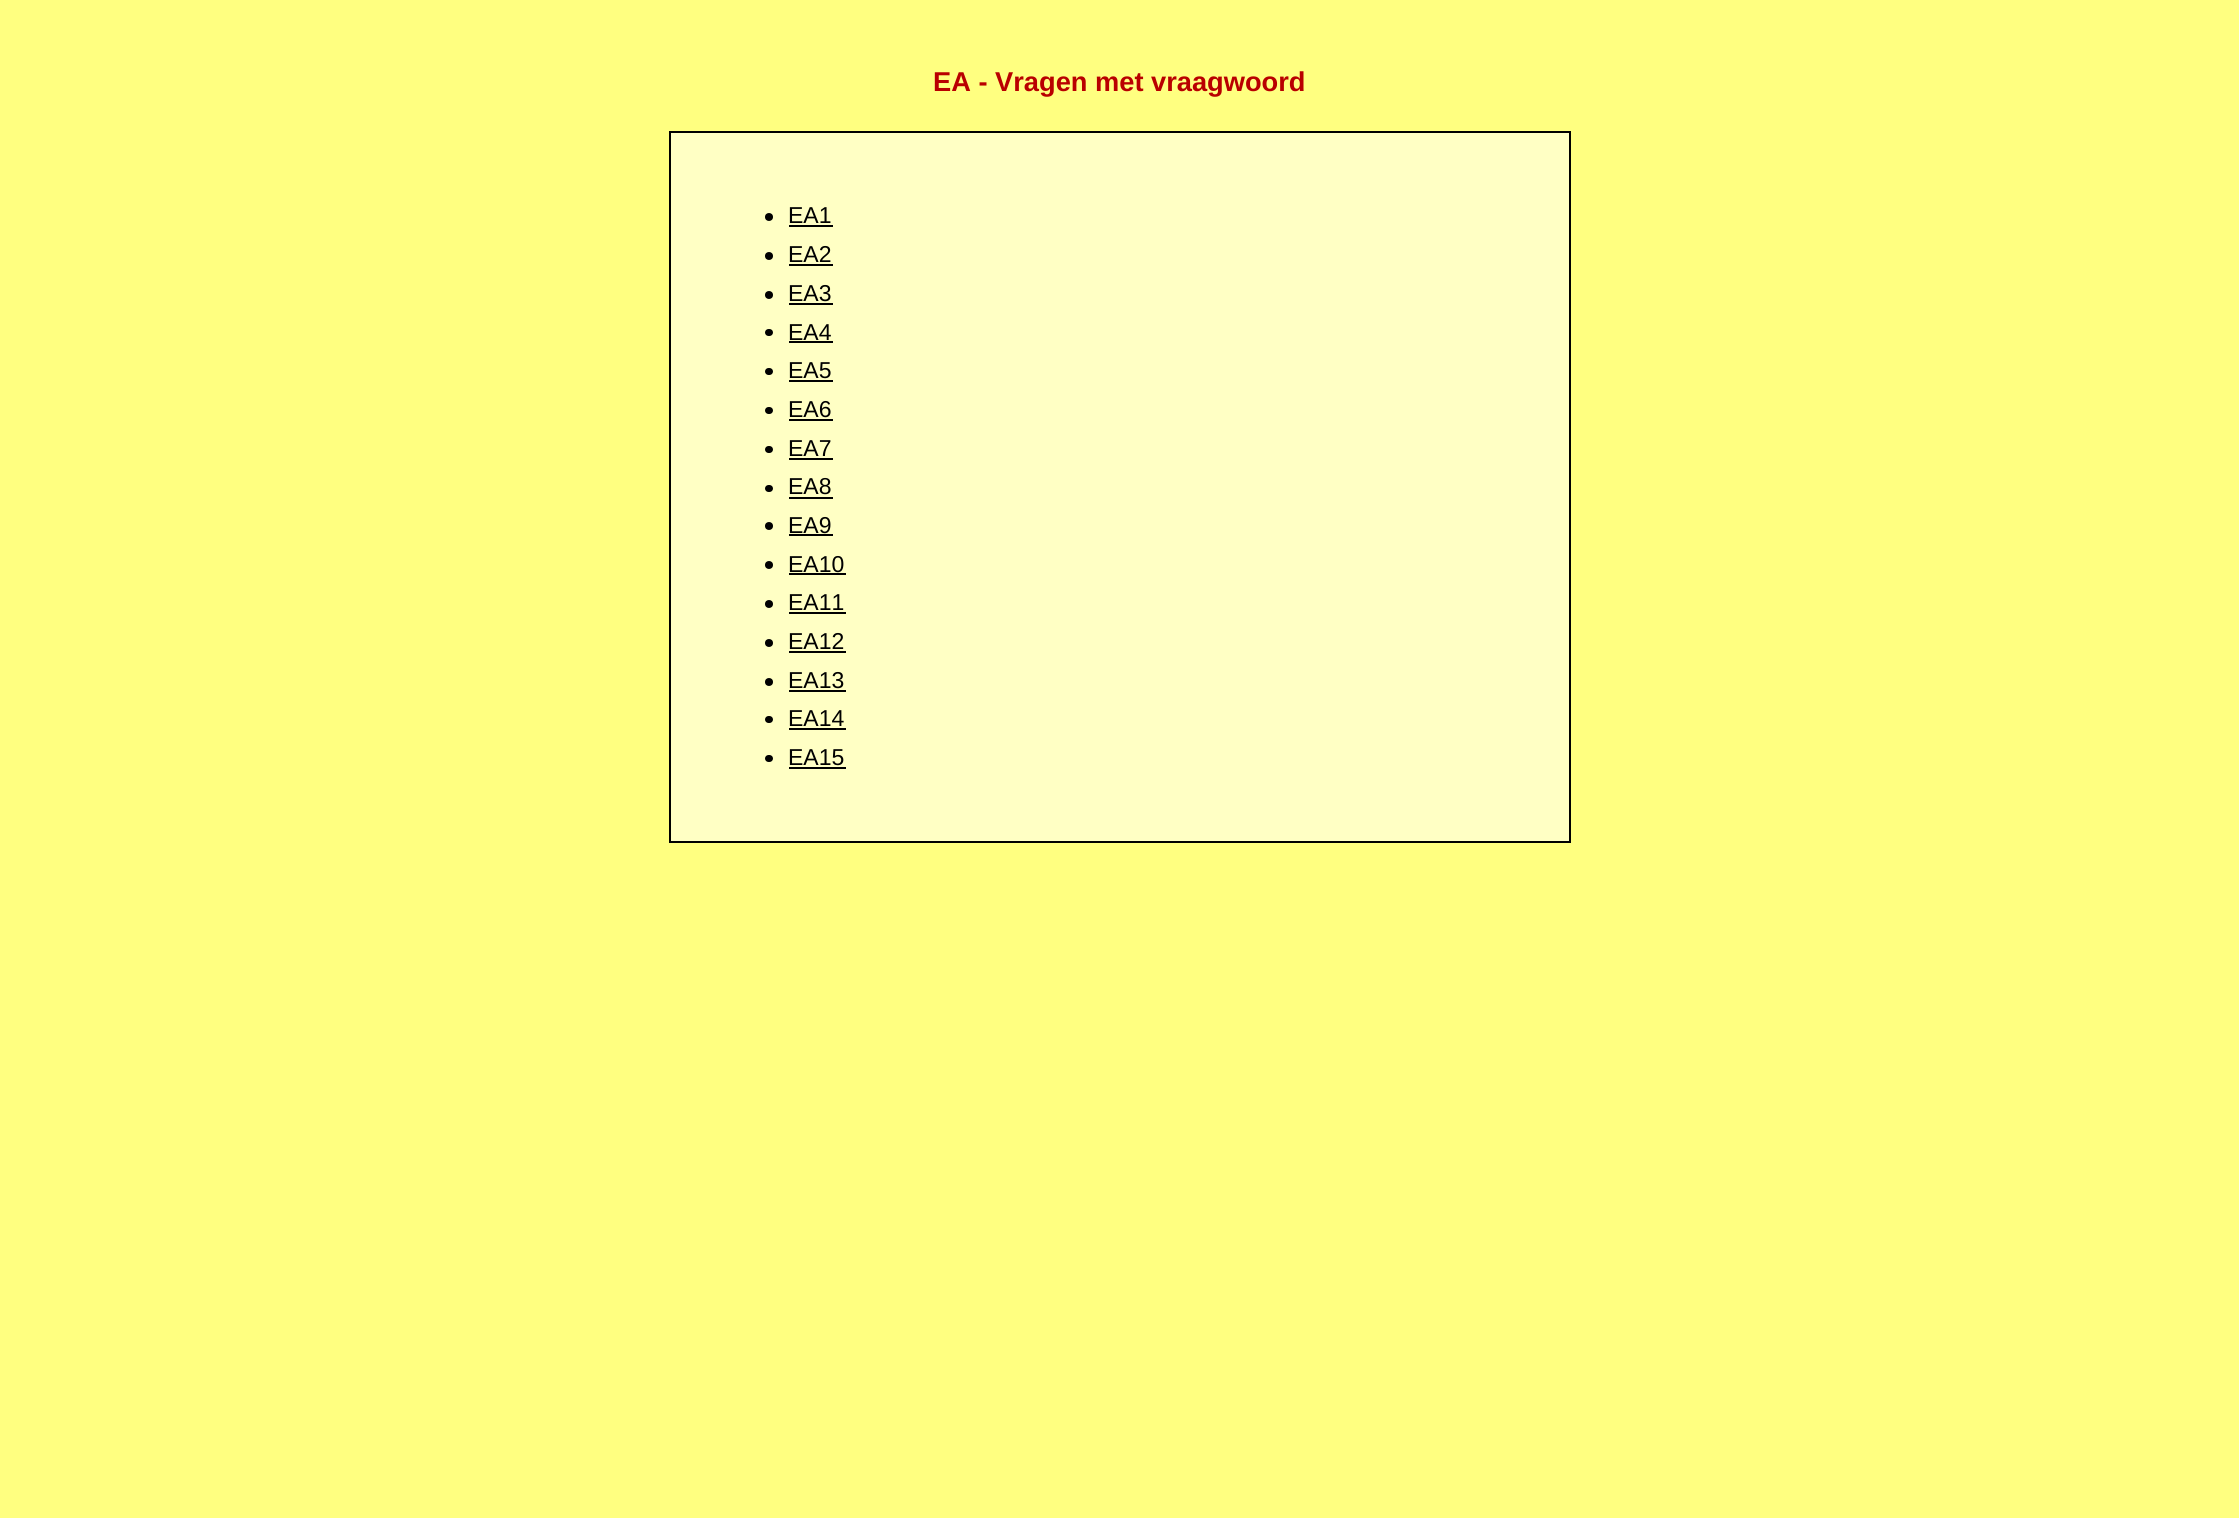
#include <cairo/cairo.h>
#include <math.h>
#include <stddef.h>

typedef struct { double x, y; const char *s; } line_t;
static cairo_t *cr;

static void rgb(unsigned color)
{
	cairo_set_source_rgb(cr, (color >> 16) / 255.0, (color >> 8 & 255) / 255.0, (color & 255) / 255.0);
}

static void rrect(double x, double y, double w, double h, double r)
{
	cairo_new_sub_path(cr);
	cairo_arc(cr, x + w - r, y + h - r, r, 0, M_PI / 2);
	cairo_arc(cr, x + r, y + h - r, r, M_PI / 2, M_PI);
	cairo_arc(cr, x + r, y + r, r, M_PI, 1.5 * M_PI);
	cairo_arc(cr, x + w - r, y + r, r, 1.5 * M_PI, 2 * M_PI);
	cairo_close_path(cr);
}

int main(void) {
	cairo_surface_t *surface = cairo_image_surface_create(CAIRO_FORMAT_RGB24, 2239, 1518);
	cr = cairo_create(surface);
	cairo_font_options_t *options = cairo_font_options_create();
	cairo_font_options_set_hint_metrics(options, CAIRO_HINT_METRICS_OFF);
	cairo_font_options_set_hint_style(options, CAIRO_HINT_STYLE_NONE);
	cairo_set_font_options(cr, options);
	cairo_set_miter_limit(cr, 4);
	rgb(0xffff80);
	cairo_paint(cr);
	rgb(0xffffc4);
	cairo_rectangle(cr, 670, 132, 900, 710);
	cairo_fill_preserve(cr);
	rgb(0x000000);
	cairo_stroke(cr);
	cairo_arc(cr, 769, 217, 4, 0, 2 * M_PI);
	cairo_fill(cr);
	cairo_rectangle(cr, 789, 225, 44, 2);
	cairo_fill(cr);
	cairo_arc(cr, 769, 256, 4, 0, 2 * M_PI);
	cairo_fill(cr);
	cairo_rectangle(cr, 789, 264, 44, 2);
	cairo_fill(cr);
	cairo_arc(cr, 769, 295, 4, 0, 2 * M_PI);
	cairo_fill(cr);
	cairo_rectangle(cr, 789, 303, 44, 2);
	cairo_fill(cr);
	rrect(765, 329, 8, 7, 3.5);
	cairo_fill(cr);
	cairo_rectangle(cr, 789, 341, 44, 2);
	cairo_fill(cr);
	rrect(765, 368, 8, 7, 3.5);
	cairo_fill(cr);
	cairo_rectangle(cr, 789, 380, 44, 2);
	cairo_fill(cr);
	rrect(765, 407, 8, 7, 3.5);
	cairo_fill(cr);
	cairo_rectangle(cr, 789, 419, 44, 2);
	cairo_fill(cr);
	rrect(765, 446, 8, 7, 3.5);
	cairo_fill(cr);
	cairo_rectangle(cr, 789, 458, 44, 2);
	cairo_fill(cr);
	rrect(765, 485, 8, 7, 3.5);
	cairo_fill(cr);
	cairo_rectangle(cr, 789, 497, 44, 2);
	cairo_fill(cr);
	cairo_arc(cr, 769, 526, 4, 0, 2 * M_PI);
	cairo_fill(cr);
	cairo_rectangle(cr, 789, 534, 44, 2);
	cairo_fill(cr);
	cairo_arc(cr, 769, 565, 4, 0, 2 * M_PI);
	cairo_fill(cr);
	cairo_rectangle(cr, 789, 573, 57, 2);
	cairo_fill(cr);
	cairo_arc(cr, 769, 604, 4, 0, 2 * M_PI);
	cairo_fill(cr);
	cairo_rectangle(cr, 789, 612, 57, 2);
	cairo_fill(cr);
	cairo_arc(cr, 769, 643, 4, 0, 2 * M_PI);
	cairo_fill(cr);
	cairo_rectangle(cr, 789, 651, 57, 2);
	cairo_fill(cr);
	cairo_arc(cr, 769, 682, 4, 0, 2 * M_PI);
	cairo_fill(cr);
	cairo_rectangle(cr, 789, 690, 57, 2);
	cairo_fill(cr);
	rrect(765, 716, 8, 7, 3.5);
	cairo_fill(cr);
	cairo_rectangle(cr, 789, 728, 57, 2);
	cairo_fill(cr);
	rrect(765, 755, 8, 7, 3.5);
	cairo_fill(cr);
	cairo_rectangle(cr, 789, 767, 57, 2);
	cairo_fill(cr);
	cairo_select_font_face(cr, "Liberation Sans", CAIRO_FONT_SLANT_NORMAL, CAIRO_FONT_WEIGHT_BOLD);
	cairo_set_font_size(cr, 27.25);
	rgb(0xb90000);
	cairo_move_to(cr, 933, 91);
	cairo_show_text(cr, "EA - Vragen met vraagwoord");
	cairo_select_font_face(cr, "Liberation Sans", CAIRO_FONT_SLANT_NORMAL, CAIRO_FONT_WEIGHT_NORMAL);
	cairo_set_font_size(cr, 23);
	rgb(0x000000);
	{
		static const line_t items[] = {
			{788, 223, "EA1"},
			{788, 262, "EA2"},
			{788, 301, "EA3"},
			{788, 340, "EA4"},
			{788, 378, "EA5"},
			{788, 417, "EA6"},
			{788, 456, "EA7"},
			{788, 494, "EA8"},
			{788, 533, "EA9"},
			{788, 572, "EA10"},
			{788, 610, "EA11"},
			{788, 649, "EA12"},
			{788, 688, "EA13"},
			{788, 726, "EA14"},
			{788, 765, "EA15"},
		};
		for (size_t i = 0; i < sizeof items / sizeof *items; i++) {
			cairo_move_to(cr, items[i].x, items[i].y);
			cairo_show_text(cr, items[i].s);
		}
	}
	cairo_surface_write_to_png(surface, "page.png");
	cairo_font_options_destroy(options);
	cairo_destroy(cr);
	cairo_surface_destroy(surface);
	return 0;
}
